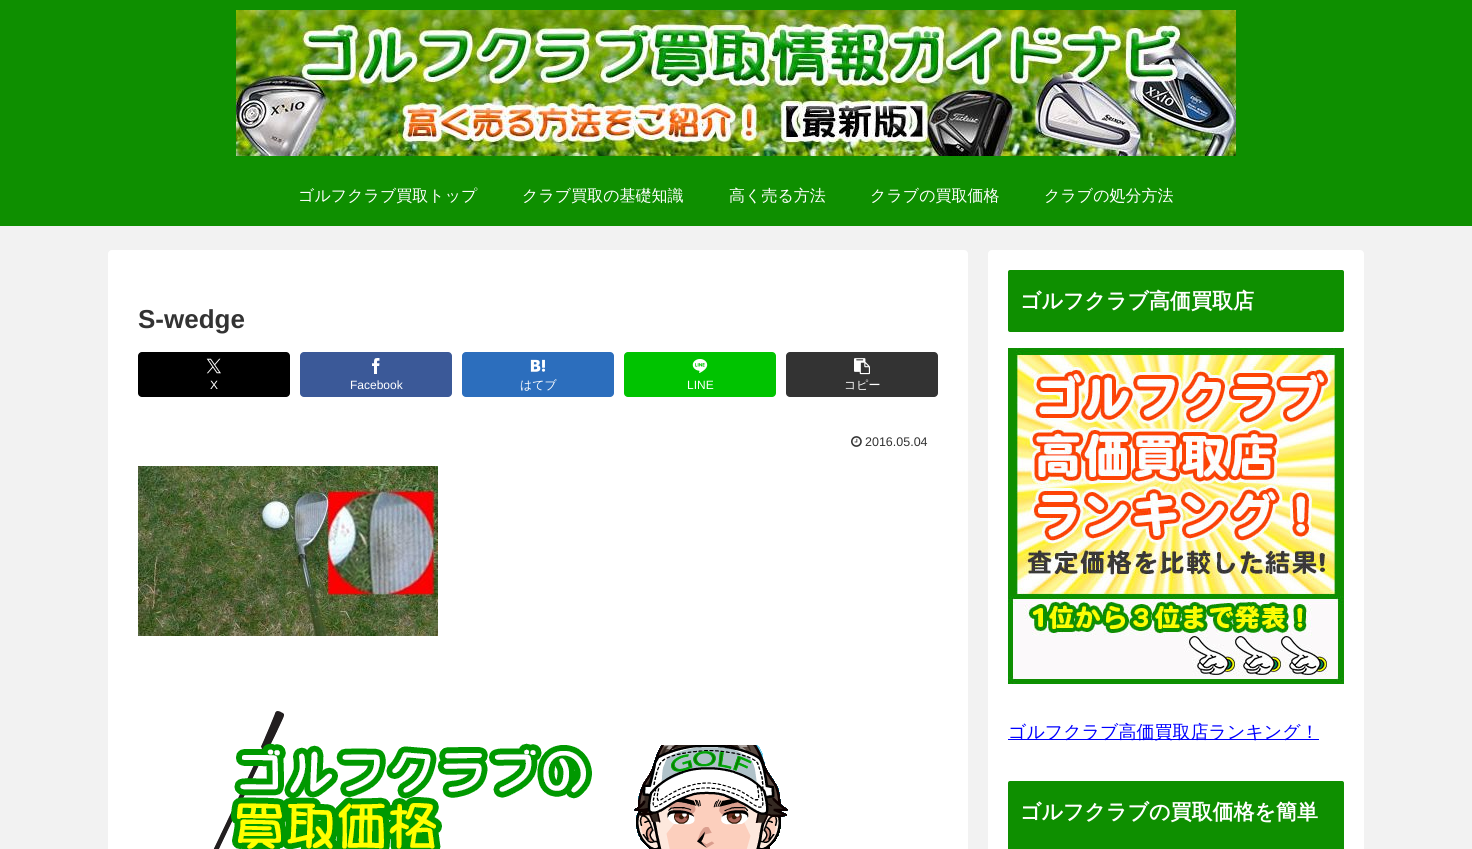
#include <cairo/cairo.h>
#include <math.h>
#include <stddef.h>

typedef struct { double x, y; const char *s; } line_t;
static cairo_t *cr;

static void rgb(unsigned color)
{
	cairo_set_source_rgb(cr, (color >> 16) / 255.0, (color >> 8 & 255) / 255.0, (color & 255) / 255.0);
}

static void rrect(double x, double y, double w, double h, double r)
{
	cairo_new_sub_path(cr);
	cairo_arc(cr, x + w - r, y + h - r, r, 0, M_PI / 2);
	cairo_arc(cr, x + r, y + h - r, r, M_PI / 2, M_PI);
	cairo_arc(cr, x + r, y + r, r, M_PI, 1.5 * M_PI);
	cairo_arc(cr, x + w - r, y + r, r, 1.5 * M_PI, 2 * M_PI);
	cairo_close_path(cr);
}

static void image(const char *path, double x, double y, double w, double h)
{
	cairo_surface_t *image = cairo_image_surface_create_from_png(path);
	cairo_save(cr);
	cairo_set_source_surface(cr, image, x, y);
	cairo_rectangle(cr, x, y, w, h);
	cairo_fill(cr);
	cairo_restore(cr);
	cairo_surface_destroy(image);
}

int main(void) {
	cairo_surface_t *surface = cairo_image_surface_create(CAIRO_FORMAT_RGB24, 1472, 849);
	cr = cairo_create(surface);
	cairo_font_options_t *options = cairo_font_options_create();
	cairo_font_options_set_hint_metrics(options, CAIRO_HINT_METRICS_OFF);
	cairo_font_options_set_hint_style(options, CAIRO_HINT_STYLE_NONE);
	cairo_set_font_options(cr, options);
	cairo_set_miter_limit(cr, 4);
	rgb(0xf2f2f2);
	cairo_paint(cr);
	rgb(0x0e8f00);
	cairo_rectangle(cr, 0, 0, 1472, 226);
	cairo_fill(cr);
	image("img/1.png", 236, 10, 1000, 146);
	rgb(0xffffff);
	rrect(108, 250, 860, 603, 4);
	cairo_fill(cr);
	rgb(0x000000);
	rrect(138, 352, 152, 45, 4);
	cairo_fill(cr);
	image("img/2.png", 206, 358, 15, 16);
	rgb(0x3b5998);
	rrect(300, 352, 152, 45, 4);
	cairo_fill(cr);
	image("img/3.png", 372, 358, 8, 16);
	rgb(0x2c6ebd);
	rrect(462, 352, 152, 45, 4);
	cairo_fill(cr);
	image("img/4.png", 530, 359, 16, 13);
	rgb(0x00c300);
	rrect(624, 352, 152, 45, 4);
	cairo_fill(cr);
	image("img/5.png", 692, 359, 16, 14);
	rgb(0x333333);
	rrect(786, 352, 152, 45, 4);
	cairo_fill(cr);
	image("img/6.png", 854, 358, 16, 17);
	image("img/7.png", 851, 436, 11, 11);
	image("img/8.png", 138, 466, 300, 170);
	image("img/9.png", 213, 711, 575, 138);
	rgb(0xffffff);
	rrect(988, 250, 376, 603, 4);
	cairo_fill(cr);
	rgb(0x0e8f00);
	rrect(1008, 270, 336, 62, 2);
	cairo_fill(cr);
	image("img/10.png", 1008, 348, 336, 336);
	rgb(0x0000ff);
	cairo_rectangle(cr, 1008, 739, 311, 1);
	cairo_fill(cr);
	rgb(0x0e8f00);
	rrect(1008, 781, 336, 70, 2);
	cairo_fill(cr);
	cairo_select_font_face(cr, "WenQuanYi Zen Hei Medium", CAIRO_FONT_SLANT_NORMAL, CAIRO_FONT_WEIGHT_NORMAL);
	cairo_set_font_size(cr, 16);
	rgb(0xffffff);
	{
		static const line_t items[] = {
			{298, 201, "ゴルフクラブ買取トップ"},
			{522, 201, "クラブ買取の基礎知識"},
			{729, 201, "高く売る方法"},
			{870, 201, "クラブの買取価格"},
			{1044, 201, "クラブの処分方法"},
		};
		for (size_t i = 0; i < sizeof items / sizeof *items; i++) {
			cairo_move_to(cr, items[i].x, items[i].y);
			cairo_show_text(cr, items[i].s);
		}
	}
	cairo_select_font_face(cr, "Liberation Sans", CAIRO_FONT_SLANT_NORMAL, CAIRO_FONT_WEIGHT_BOLD);
	cairo_set_font_size(cr, 26);
	rgb(0x333333);
	cairo_move_to(cr, 138, 328);
	cairo_show_text(cr, "S-wedge");
	cairo_select_font_face(cr, "Liberation Sans", CAIRO_FONT_SLANT_NORMAL, CAIRO_FONT_WEIGHT_NORMAL);
	cairo_set_font_size(cr, 12);
	rgb(0xffffff);
	cairo_move_to(cr, 210, 389);
	cairo_show_text(cr, "X");
	cairo_move_to(cr, 350, 389);
	cairo_show_text(cr, "Facebook");
	cairo_select_font_face(cr, "WenQuanYi Zen Hei Medium", CAIRO_FONT_SLANT_NORMAL, CAIRO_FONT_WEIGHT_NORMAL);
	cairo_move_to(cr, 520, 389);
	cairo_show_text(cr, "はてブ");
	cairo_select_font_face(cr, "Liberation Sans", CAIRO_FONT_SLANT_NORMAL, CAIRO_FONT_WEIGHT_NORMAL);
	cairo_move_to(cr, 687, 389);
	cairo_show_text(cr, "LINE");
	cairo_select_font_face(cr, "WenQuanYi Zen Hei Medium", CAIRO_FONT_SLANT_NORMAL, CAIRO_FONT_WEIGHT_NORMAL);
	cairo_move_to(cr, 844, 389);
	cairo_show_text(cr, "コピー");
	cairo_select_font_face(cr, "Liberation Sans", CAIRO_FONT_SLANT_NORMAL, CAIRO_FONT_WEIGHT_NORMAL);
	cairo_set_font_size(cr, 12.5);
	rgb(0x333333);
	cairo_move_to(cr, 865, 446);
	cairo_show_text(cr, "2016.05.04");
	cairo_select_font_face(cr, "WenQuanYi Zen Hei", CAIRO_FONT_SLANT_NORMAL, CAIRO_FONT_WEIGHT_BOLD);
	cairo_set_font_size(cr, 21);
	rgb(0xffffff);
	cairo_move_to(cr, 1020, 308);
	cairo_show_text(cr, "ゴルフクラブ高価買取店");
	cairo_select_font_face(cr, "WenQuanYi Zen Hei Medium", CAIRO_FONT_SLANT_NORMAL, CAIRO_FONT_WEIGHT_NORMAL);
	cairo_set_font_size(cr, 18);
	rgb(0x0000ff);
	cairo_move_to(cr, 1008, 738);
	cairo_show_text(cr, "ゴルフクラブ高価買取店ランキング！");
	cairo_select_font_face(cr, "WenQuanYi Zen Hei", CAIRO_FONT_SLANT_NORMAL, CAIRO_FONT_WEIGHT_BOLD);
	cairo_set_font_size(cr, 21);
	rgb(0xffffff);
	cairo_move_to(cr, 1020, 819);
	cairo_show_text(cr, "ゴルフクラブの買取価格を簡単");
	cairo_surface_write_to_png(surface, "page.png");
	cairo_font_options_destroy(options);
	cairo_destroy(cr);
	cairo_surface_destroy(surface);
	return 0;
}
